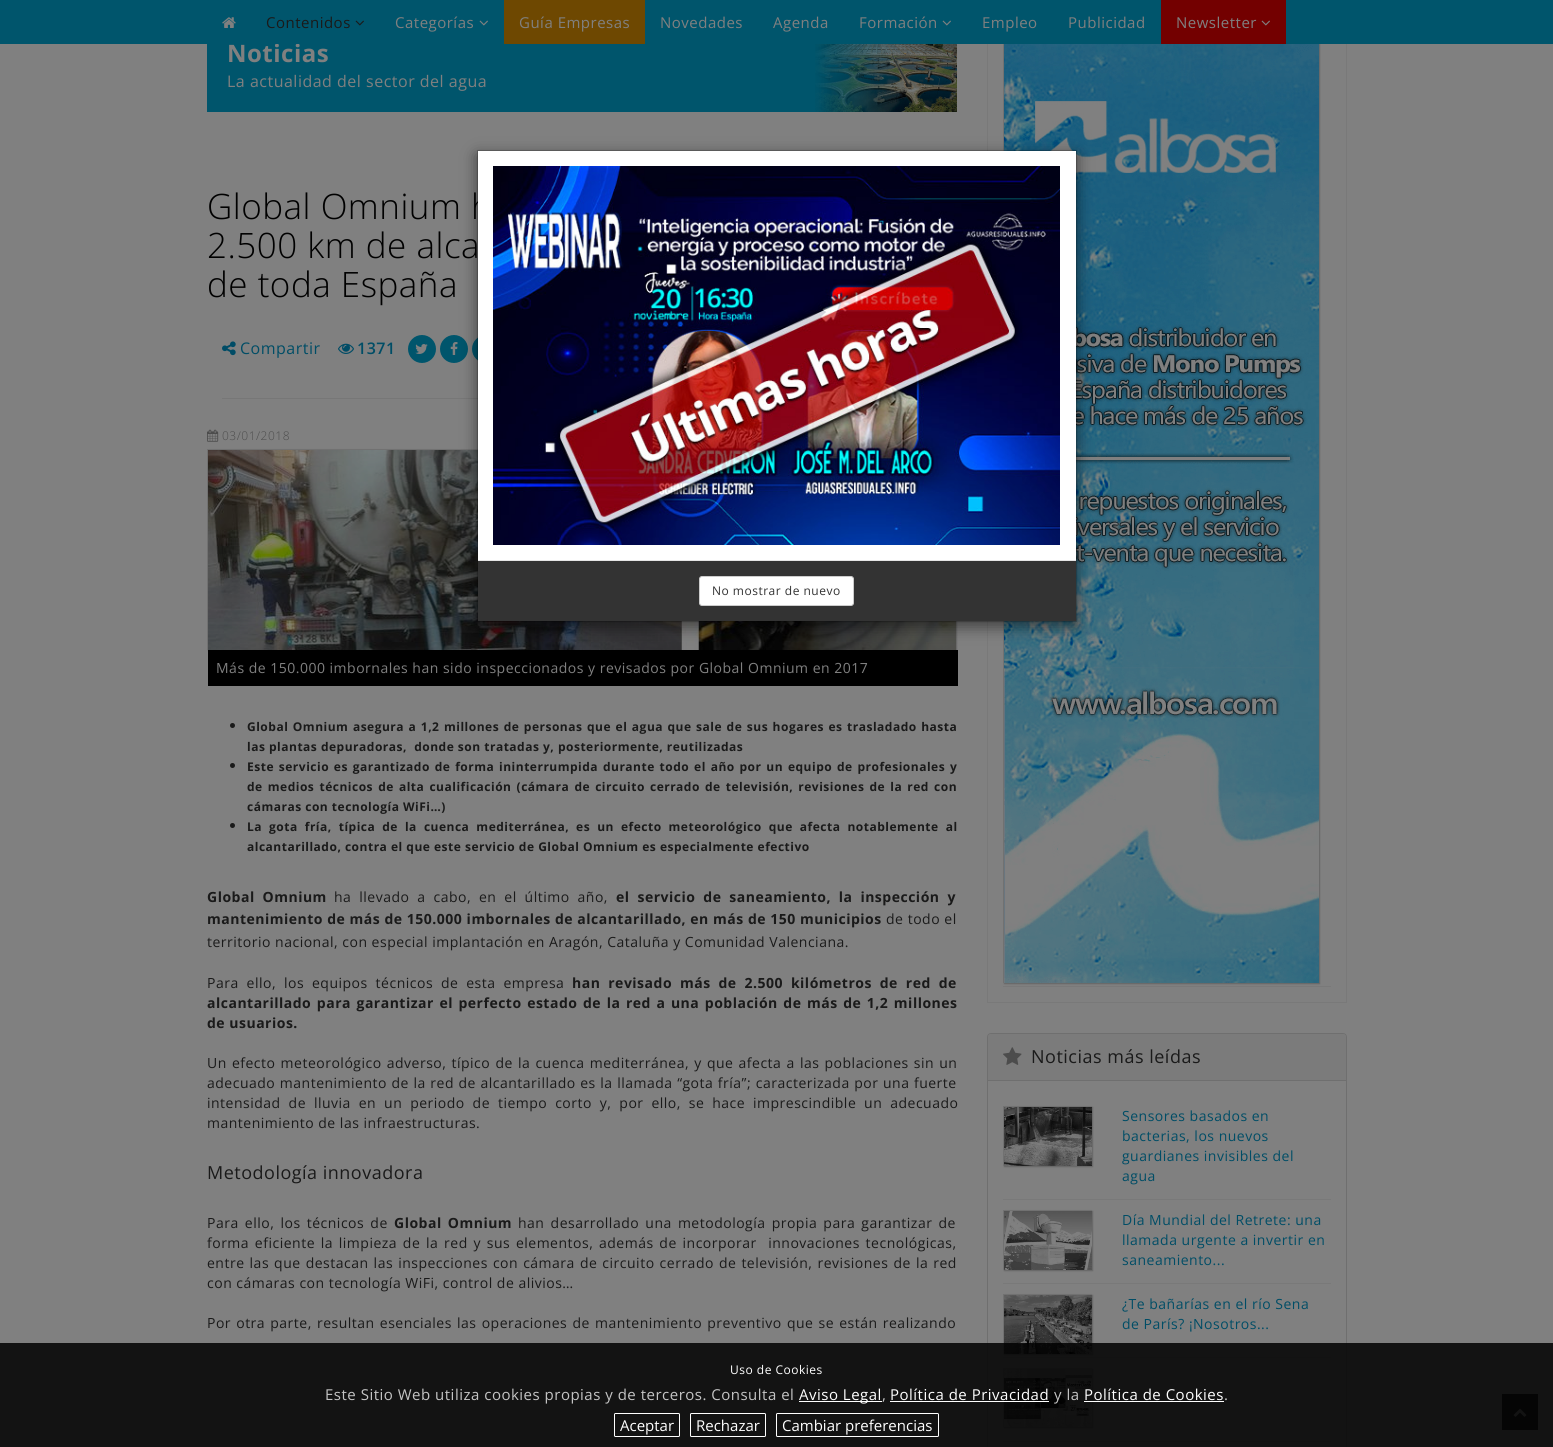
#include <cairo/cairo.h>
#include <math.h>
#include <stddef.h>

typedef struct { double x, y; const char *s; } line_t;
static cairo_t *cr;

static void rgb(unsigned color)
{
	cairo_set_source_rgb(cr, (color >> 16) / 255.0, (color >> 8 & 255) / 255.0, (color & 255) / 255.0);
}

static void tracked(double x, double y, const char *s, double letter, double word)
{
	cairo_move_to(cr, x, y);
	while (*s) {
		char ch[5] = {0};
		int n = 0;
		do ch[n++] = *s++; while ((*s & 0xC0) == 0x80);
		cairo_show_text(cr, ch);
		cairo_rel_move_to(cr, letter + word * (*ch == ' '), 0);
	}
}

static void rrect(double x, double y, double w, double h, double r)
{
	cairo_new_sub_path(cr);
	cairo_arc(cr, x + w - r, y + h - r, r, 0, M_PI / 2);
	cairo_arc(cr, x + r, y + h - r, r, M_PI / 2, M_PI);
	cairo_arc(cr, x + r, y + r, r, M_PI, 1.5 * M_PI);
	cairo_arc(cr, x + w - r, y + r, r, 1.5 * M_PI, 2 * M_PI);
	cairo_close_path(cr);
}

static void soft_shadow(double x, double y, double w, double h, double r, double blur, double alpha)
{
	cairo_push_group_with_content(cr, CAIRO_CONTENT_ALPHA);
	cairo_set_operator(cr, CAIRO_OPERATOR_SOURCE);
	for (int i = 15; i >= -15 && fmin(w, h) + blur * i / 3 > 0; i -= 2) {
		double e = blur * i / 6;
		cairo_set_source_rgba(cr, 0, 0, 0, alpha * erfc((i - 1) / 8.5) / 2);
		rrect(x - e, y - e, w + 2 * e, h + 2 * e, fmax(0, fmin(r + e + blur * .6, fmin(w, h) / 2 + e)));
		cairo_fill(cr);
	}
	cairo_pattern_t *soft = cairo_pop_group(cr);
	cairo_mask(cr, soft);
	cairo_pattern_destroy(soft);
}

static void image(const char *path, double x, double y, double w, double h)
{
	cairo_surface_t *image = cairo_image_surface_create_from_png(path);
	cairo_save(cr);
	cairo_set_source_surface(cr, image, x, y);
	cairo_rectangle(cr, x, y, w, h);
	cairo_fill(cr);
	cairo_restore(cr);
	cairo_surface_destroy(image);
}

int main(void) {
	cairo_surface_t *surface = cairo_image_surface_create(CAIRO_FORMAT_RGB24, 1553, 1447);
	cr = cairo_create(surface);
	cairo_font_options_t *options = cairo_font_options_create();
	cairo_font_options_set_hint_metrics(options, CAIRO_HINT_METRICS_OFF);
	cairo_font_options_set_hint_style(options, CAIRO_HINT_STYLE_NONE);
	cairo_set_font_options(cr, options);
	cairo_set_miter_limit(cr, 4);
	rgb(0x808080);
	cairo_paint(cr);
	rgb(0x00556c);
	cairo_rectangle(cr, 207, 44, 698, 68);
	cairo_fill(cr);
	image("img/5.png", 815, 44, 142, 68);
	image("img/6.png", 222, 341, 14, 15);
	image("img/7.png", 338, 343, 16, 11);
	cairo_arc(cr, 422, 349, 14, 0, 2 * M_PI);
	cairo_fill(cr);
	image("img/8.png", 415, 344, 13, 10);
	cairo_arc(cr, 454, 349, 14, 0, 2 * M_PI);
	cairo_fill(cr);
	image("img/9.png", 450, 342, 8, 13);
	cairo_arc(cr, 486, 349, 14, 0, 2 * M_PI);
	cairo_fill(cr);
	rgb(0x777777);
	cairo_rectangle(cr, 222, 398, 256, 1);
	cairo_fill(cr);
	image("img/10.png", 207, 429, 12, 13);
	rgb(0x666666);
	soft_shadow(208, 450, 749, 201, 0, 0.5, 1);
	rgb(0x717171);
	cairo_rectangle(cr, 207, 449, 271, 1);
	cairo_fill(cr);
	cairo_rectangle(cr, 207, 449, 1, 201);
	cairo_fill(cr);
	image("img/11.png", 208, 450, 748, 200);
	rgb(0x000000);
	cairo_rectangle(cr, 208, 650, 750, 36);
	cairo_fill(cr);
	rgb(0x1a1a1a);
	cairo_arc(cr, 232.5, 725.5, 2.5, 0, 2 * M_PI);
	cairo_fill(cr);
	cairo_arc(cr, 232.5, 765.5, 2.5, 0, 2 * M_PI);
	cairo_fill(cr);
	cairo_arc(cr, 232.5, 825.5, 2.5, 0, 2 * M_PI);
	cairo_fill(cr);
	cairo_rectangle(cr, 987.5, 6.5, 359, 996);
	rgb(0x797979);
	cairo_set_line_width(cr, 1);
	cairo_stroke(cr);
	cairo_rectangle(cr, 1003, 986, 328, 1);
	cairo_fill(cr);
	rgb(0x666666);
	soft_shadow(1004, 33, 316, 951, 0, 0.5, 1);
	rgb(0x717171);
	cairo_rectangle(cr, 1003, 44, 1, 939);
	cairo_fill(cr);
	image("img/12.png", 1004, 44, 315, 939);
	rrect(987.5, 1033.5, 359, 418, 3.5);
	rgb(0x6f6f6f);
	cairo_stroke(cr);
	rgb(0x7b7b7b);
	cairo_new_path(cr);
	cairo_move_to(cr, 991, 1034);
	cairo_line_to(cr, 1343, 1034);
	cairo_curve_to(cr, 1344.5, 1034, 1346, 1035.5, 1346, 1037);
	cairo_line_to(cr, 1346, 1081);
	cairo_line_to(cr, 988, 1081);
	cairo_line_to(cr, 988, 1037);
	cairo_curve_to(cr, 988, 1035.5, 989.5, 1034, 991, 1034);
	cairo_close_path(cr);
	cairo_fill(cr);
	rgb(0x6f6f6f);
	cairo_rectangle(cr, 988, 1080, 358, 1);
	cairo_fill(cr);
	image("img/13.png", 1003, 1047, 19, 18);
	rgb(0x797979);
	cairo_rectangle(cr, 1003, 1199, 328, 1);
	cairo_fill(cr);
	rgb(0x666666);
	soft_shadow(1004, 1107, 89, 60, 0, 0.5, 1);
	rgb(0x717171);
	cairo_rectangle(cr, 1003, 1106, 89, 1);
	cairo_fill(cr);
	cairo_rectangle(cr, 1003, 1106, 1, 60);
	cairo_fill(cr);
	image("img/14.png", 1004, 1107, 88, 59);
	rgb(0x797979);
	cairo_rectangle(cr, 1003, 1283, 328, 1);
	cairo_fill(cr);
	rgb(0x666666);
	soft_shadow(1004, 1211, 89, 60, 0, 0.5, 1);
	rgb(0x717171);
	cairo_rectangle(cr, 1003, 1210, 89, 1);
	cairo_fill(cr);
	cairo_rectangle(cr, 1003, 1210, 1, 60);
	cairo_fill(cr);
	image("img/15.png", 1004, 1211, 88, 59);
	rgb(0x797979);
	cairo_rectangle(cr, 1003, 1357, 328, 1);
	cairo_fill(cr);
	rgb(0x666666);
	soft_shadow(1004, 1295, 89, 60, 0, 0.5, 1);
	rgb(0x717171);
	cairo_rectangle(cr, 1003, 1294, 89, 1);
	cairo_fill(cr);
	cairo_rectangle(cr, 1003, 1294, 1, 60);
	cairo_fill(cr);
	image("img/16.png", 1004, 1295, 88, 59);
	rgb(0x797979);
	cairo_rectangle(cr, 1003, 1441, 328, 1);
	cairo_fill(cr);
	rgb(0x666666);
	soft_shadow(1004, 1369, 89, 59, 0, 0.5, 1);
	rgb(0x717171);
	cairo_rectangle(cr, 1003, 1368, 89, 1);
	cairo_fill(cr);
	cairo_rectangle(cr, 1003, 1368, 1, 59);
	cairo_fill(cr);
	image("img/17.png", 1004, 1369, 88, 58);
	rgb(0x000000);
	soft_shadow(477, 155, 600, 472, 0, 7.5, 0.5);
	rgb(0x222222);
	cairo_rectangle(cr, 1502, 1394, 36, 36);
	cairo_fill(cr);
	image("img/19.png", 1513, 1408, 14, 9);
	cairo_set_source_rgba(cr, 0, 0, 0, 0.85);
	cairo_rectangle(cr, 0, 1343, 1553, 104);
	cairo_fill(cr);
	rgb(0xffffff);
	cairo_rectangle(cr, 799, 1401, 83, 1);
	cairo_fill(cr);
	cairo_rectangle(cr, 890, 1401, 159, 1);
	cairo_fill(cr);
	cairo_rectangle(cr, 1084, 1401, 140, 1);
	cairo_fill(cr);
	rrect(614.5, 1413.5, 65, 23, 1);
	cairo_stroke(cr);
	rrect(690.5, 1413.5, 75, 23, 1);
	cairo_stroke(cr);
	rrect(776.5, 1413.5, 162, 23, 1);
	cairo_stroke(cr);
	cairo_select_font_face(cr, "Open Sans", CAIRO_FONT_SLANT_NORMAL, CAIRO_FONT_WEIGHT_BOLD);
	cairo_set_font_size(cr, 24);
	rgb(0x808080);
	tracked(227, 62, "Noticias", 0.5, 0);
	rgb(0x00556c);
	cairo_rectangle(cr, 0, 0, 1553, 44);
	cairo_fill(cr);
	rgb(0x730000);
	cairo_rectangle(cr, 1161, 0, 125, 44);
	cairo_fill(cr);
	image("img/4.png", 1261, 20, 9, 6);
	cairo_select_font_face(cr, "Open Sans", CAIRO_FONT_SLANT_NORMAL, CAIRO_FONT_WEIGHT_NORMAL);
	cairo_set_font_size(cr, 15);
	rgb(0x808080);
	{
		static const line_t items[] = {
			{1176, 28, "Newsletter"},
			{1068, 28, "Publicidad"},
			{982, 28, "Empleo"},
		};
		for (size_t i = 0; i < sizeof items / sizeof *items; i++) {
			tracked(items[i].x, items[i].y, items[i].s, 0.5, 0);
		}
	}
	image("img/3.png", 942, 20, 9, 6);
	{
		static const line_t items[] = {
			{859, 28, "Formación"},
			{773, 28, "Agenda"},
			{660, 28, "Novedades"},
		};
		for (size_t i = 0; i < sizeof items / sizeof *items; i++) {
			tracked(items[i].x, items[i].y, items[i].s, 0.5, 0);
		}
	}
	rgb(0x6e4801);
	cairo_rectangle(cr, 504, 0, 141, 44);
	cairo_fill(cr);
	rgb(0x808080);
	tracked(519, 28, "Guía Empresas", 0.5, 0);
	image("img/3.png", 479, 20, 9, 6);
	tracked(395, 28, "Categorías", 0.5, 0);
	image("img/2.png", 355, 20, 9, 6);
	rgb(0x1a1a1a);
	tracked(266, 28, "Contenidos", 0.5, 0);
	image("img/1.png", 222, 17, 14, 11);
	cairo_set_font_size(cr, 16);
	rgb(0x808080);
	tracked(227, 87, "La actualidad del sector del agua", 0.5, 0);
	cairo_select_font_face(cr, "Open Sans Light", CAIRO_FONT_SLANT_NORMAL, CAIRO_FONT_WEIGHT_NORMAL);
	cairo_set_font_size(cr, 35);
	rgb(0x000000);
	{
		static const line_t items[] = {
			{207, 219, "Global Omnium h"},
			{207, 258, "2.500 km de alca"},
			{207, 297, "de toda España"},
		};
		for (size_t i = 0; i < sizeof items / sizeof *items; i++) {
			tracked(items[i].x, items[i].y, items[i].s, 0.5, 0);
		}
	}
	cairo_select_font_face(cr, "Open Sans", CAIRO_FONT_SLANT_NORMAL, CAIRO_FONT_WEIGHT_NORMAL);
	cairo_set_font_size(cr, 16);
	rgb(0x004d66);
	tracked(240, 354, "Compartir", 0.5, 0);
	cairo_select_font_face(cr, "Open Sans SemiBold", CAIRO_FONT_SLANT_NORMAL, CAIRO_FONT_WEIGHT_NORMAL);
	tracked(357, 354, "1371", 0.5, 0);
	cairo_select_font_face(cr, "Open Sans Light", CAIRO_FONT_SLANT_NORMAL, CAIRO_FONT_WEIGHT_NORMAL);
	cairo_set_font_size(cr, 12);
	rgb(0x4d4d4d);
	tracked(222, 440, "03/01/2018", 0.5, 0);
	cairo_select_font_face(cr, "Open Sans", CAIRO_FONT_SLANT_NORMAL, CAIRO_FONT_WEIGHT_NORMAL);
	cairo_set_font_size(cr, 14);
	rgb(0x808080);
	tracked(216, 673, "Más de 150.000 imbornales han sido inspeccionados y revisados por Global Omnium en 2017", 0.5, 0);
	cairo_select_font_face(cr, "Open Sans", CAIRO_FONT_SLANT_NORMAL, CAIRO_FONT_WEIGHT_BOLD);
	cairo_set_font_size(cr, 12);
	rgb(0x1a1a1a);
	tracked(247, 731, "Global Omnium asegura a 1,2 millones de personas que el agua que sale de sus hogares es trasladado hasta", 0.5, 0.9);
	tracked(247, 751, "las plantas depuradoras,  donde son tratadas y, posteriormente, reutilizadas", 0.5, 0);
	tracked(247, 771, "Este servicio es garantizado de forma ininterrumpida durante todo el año por un equipo de profesionales y", 0.5, 1.2);
	tracked(247, 791, "de medios técnicos de alta cualificación (cámara de circuito cerrado de televisión, revisiones de la red con", 0.5, 1.5);
	tracked(247, 811, "cámaras con tecnología WiFi…)", 0.5, 0);
	tracked(247, 831, "La gota fría, típica de la cuenca mediterránea, es un efecto meteorológico que afecta notablemente al", 0.5, 3.4);
	tracked(247, 851, "alcantarillado, contra el que este servicio de Global Omnium es especialmente efectivo", 0.5, 0);
	cairo_set_font_size(cr, 14);
	tracked(207, 902, "Global Omnium", 0.5, 3.75);
	cairo_select_font_face(cr, "Open Sans", CAIRO_FONT_SLANT_NORMAL, CAIRO_FONT_WEIGHT_NORMAL);
	tracked(334, 902, "ha llevado a cabo, en el último año,", 0.5, 3.75);
	cairo_select_font_face(cr, "Open Sans", CAIRO_FONT_SLANT_NORMAL, CAIRO_FONT_WEIGHT_BOLD);
	tracked(616, 902, "el servicio de saneamiento, la inspección y", 0.5, 3.75);
	tracked(207, 924, "mantenimiento de más de 150.000 imbornales de alcantarillado, en más de 150 municipios", 0.5, 0.1);
	cairo_select_font_face(cr, "Open Sans", CAIRO_FONT_SLANT_NORMAL, CAIRO_FONT_WEIGHT_NORMAL);
	tracked(886, 924, "de todo el", 0.5, 0.1);
	tracked(207, 947, "territorio nacional, con especial implantación en Aragón, Cataluña y Comunidad Valenciana.", 0.5, 0);
	tracked(207, 988, "Para ello, los equipos técnicos de esta empresa", 0.5, 3.75);
	cairo_select_font_face(cr, "Open Sans", CAIRO_FONT_SLANT_NORMAL, CAIRO_FONT_WEIGHT_BOLD);
	tracked(572, 988, "han revisado más de 2.500 kilómetros de red de", 0.5, 3.75);
	tracked(207, 1008, "alcantarillado para garantizar el perfecto estado de la red a una población de más de 1,2 millones", 0.5, 1.4);
	tracked(207, 1028, "de usuarios.", 0.5, 0);
	cairo_select_font_face(cr, "Open Sans", CAIRO_FONT_SLANT_NORMAL, CAIRO_FONT_WEIGHT_NORMAL);
	tracked(207, 1068, "Un efecto meteorológico adverso, típico de la cuenca mediterránea, y que afecta a las poblaciones sin un", 0.5, 1);
	tracked(207, 1088, "adecuado mantenimiento de la red de alcantarillado es la llamada “gota fría”; caracterizada por una fuerte", 0.5, 0.4);
	tracked(207, 1108, "intensidad de lluvia en un periodo de tiempo corto y, por ello, se hace imprescindible un adecuado", 0.5, 3.75);
	tracked(207, 1128, "mantenimiento de las infraestructuras.", 0.5, 0);
	cairo_set_font_size(cr, 18);
	tracked(207, 1179, "Metodología innovadora", 0.5, 0);
	cairo_set_font_size(cr, 14);
	tracked(207, 1228, "Para ello, los técnicos de", 0.5, 2);
	cairo_select_font_face(cr, "Open Sans", CAIRO_FONT_SLANT_NORMAL, CAIRO_FONT_WEIGHT_BOLD);
	tracked(394, 1228, "Global Omnium", 0.5, 2);
	cairo_select_font_face(cr, "Open Sans", CAIRO_FONT_SLANT_NORMAL, CAIRO_FONT_WEIGHT_NORMAL);
	tracked(518, 1228, "han desarrollado una metodología propia para garantizar de", 0.5, 2);
	tracked(207, 1248, "forma eficiente la limpieza de la red y sus elementos, además de incorporar  innovaciones tecnológicas,", 0.5, 1.6);
	tracked(207, 1268, "entre las que destacan las inspecciones con cámara de circuito cerrado de televisión, revisiones de la red", 0.5, 0.9);
	tracked(207, 1288, "con cámaras con tecnología WiFi, control de alivios…", 0.5, 0);
	tracked(207, 1328, "Por otra parte, resultan esenciales las operaciones de mantenimiento preventivo que se están realizando", 0.5, 1);
	cairo_set_font_size(cr, 18);
	tracked(1031, 1063, "Noticias más leídas", 0.5, 0);
	cairo_set_font_size(cr, 14);
	rgb(0x004d66);
	{
		static const line_t items[] = {
			{1122, 1121, "Sensores basados en"},
			{1122, 1141, "bacterias, los nuevos"},
			{1122, 1161, "guardianes invisibles del"},
			{1122, 1181, "agua"},
			{1122, 1225, "Día Mundial del Retrete: una"},
			{1122, 1245, "llamada urgente a invertir en"},
			{1122, 1265, "saneamiento..."},
			{1122, 1309, "¿Te bañarías en el río Sena"},
			{1122, 1329, "de París? ¡Nosotros..."},
		};
		for (size_t i = 0; i < sizeof items / sizeof *items; i++) {
			tracked(items[i].x, items[i].y, items[i].s, 0.5, 0);
		}
	}
	rgb(0xffffff);
	cairo_rectangle(cr, 478, 151, 598, 409);
	cairo_fill(cr);
	cairo_rectangle(cr, 477.5, 150.5, 599, 471);
	cairo_set_source_rgba(cr, 0, 0, 0, 0.2);
	cairo_stroke(cr);
	image("img/18.png", 493, 166, 567, 379);
	rgb(0x333333);
	cairo_rectangle(cr, 478, 561, 598, 60);
	cairo_fill(cr);
	rgb(0xe5e5e5);
	cairo_rectangle(cr, 478, 560, 598, 1);
	cairo_fill(cr);
	rgb(0xffffff);
	rrect(699.5, 576.5, 154, 29, 2.5);
	cairo_fill_preserve(cr);
	rgb(0xcccccc);
	cairo_stroke(cr);
	cairo_set_font_size(cr, 12);
	rgb(0x333333);
	tracked(712, 595, "No mostrar de nuevo", 0.5, 0);
	rgb(0xffffff);
	tracked(730, 1374, "Uso de Cookies", 0.5, 0);
	cairo_set_font_size(cr, 15);
	rgb(0xc4c4c4);
	tracked(325, 1400, "Este Sitio Web utiliza cookies propias y de terceros. Consulta el", 0.5, 0);
	rgb(0xffffff);
	tracked(799, 1400, "Aviso Legal", 0.5, 0);
	rgb(0xc4c4c4);
	tracked(882, 1400, ",", 0.5, 0);
	rgb(0xffffff);
	tracked(890, 1400, "Política de Privacidad", 0.5, 0);
	rgb(0xc4c4c4);
	tracked(1054, 1400, "y la", 0.5, 0);
	rgb(0xffffff);
	tracked(1084, 1400, "Política de Cookies", 0.5, 0);
	rgb(0xc4c4c4);
	tracked(1224, 1400, ".", 0.5, 0);
	rgb(0xffffff);
	{
		static const line_t items[] = {
			{620, 1431, "Aceptar"},
			{696, 1431, "Rechazar"},
			{782, 1431, "Cambiar preferencias"},
		};
		for (size_t i = 0; i < sizeof items / sizeof *items; i++) {
			cairo_move_to(cr, items[i].x, items[i].y);
			cairo_show_text(cr, items[i].s);
		}
	}
	cairo_surface_write_to_png(surface, "page.png");
	cairo_font_options_destroy(options);
	cairo_destroy(cr);
	cairo_surface_destroy(surface);
	return 0;
}
